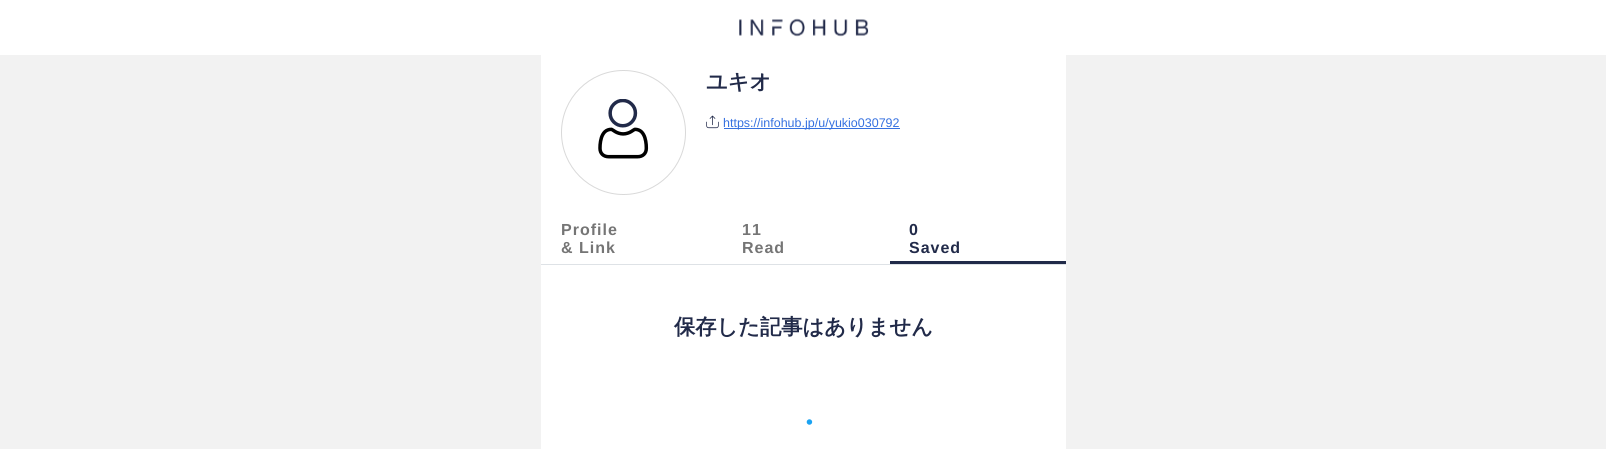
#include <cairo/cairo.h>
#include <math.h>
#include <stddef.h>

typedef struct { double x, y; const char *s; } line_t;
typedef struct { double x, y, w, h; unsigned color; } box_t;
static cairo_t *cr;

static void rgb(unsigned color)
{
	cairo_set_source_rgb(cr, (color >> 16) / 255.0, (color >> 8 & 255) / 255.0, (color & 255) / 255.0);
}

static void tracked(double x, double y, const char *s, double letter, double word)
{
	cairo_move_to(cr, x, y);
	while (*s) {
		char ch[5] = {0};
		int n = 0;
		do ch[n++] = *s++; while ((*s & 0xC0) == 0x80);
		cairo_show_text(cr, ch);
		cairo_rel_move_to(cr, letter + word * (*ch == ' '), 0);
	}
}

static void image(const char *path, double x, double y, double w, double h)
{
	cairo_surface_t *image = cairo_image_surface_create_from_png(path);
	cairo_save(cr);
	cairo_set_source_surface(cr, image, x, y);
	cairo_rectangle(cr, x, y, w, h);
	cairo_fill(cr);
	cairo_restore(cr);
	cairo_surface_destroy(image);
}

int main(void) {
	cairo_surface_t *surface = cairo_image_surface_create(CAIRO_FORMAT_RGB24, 1606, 449);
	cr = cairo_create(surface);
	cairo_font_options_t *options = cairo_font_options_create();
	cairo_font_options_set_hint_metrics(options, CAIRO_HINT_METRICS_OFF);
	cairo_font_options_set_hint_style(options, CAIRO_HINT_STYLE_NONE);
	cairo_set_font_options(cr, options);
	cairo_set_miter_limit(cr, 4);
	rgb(0xf2f2f2);
	cairo_paint(cr);
	rgb(0xffffff);
	cairo_rectangle(cr, 0, 0, 1606, 55);
	cairo_fill(cr);
	image("img/1.png", 739, 18, 130, 19);
	cairo_rectangle(cr, 541, 55, 525, 394);
	cairo_fill(cr);
	cairo_arc(cr, 623.5, 132.5, 62, 0, 2 * M_PI);
	rgb(0xd9d9d9);
	cairo_set_line_width(cr, 1);
	cairo_stroke(cr);
	image("img/2.png", 598, 99, 51, 60);
	image("img/3.png", 706, 115, 13, 14);
	{
		static const box_t items[] = {
			{724, 128, 176, 1, 0x3671e0},
			{541, 264, 525, 1, 0xdee2e6},
			{890, 261, 176, 3, 0x212a49},
		};
		for (size_t i = 0; i < sizeof items / sizeof *items; i++) {
			rgb(items[i].color);
			cairo_rectangle(cr, items[i].x, items[i].y, items[i].w, items[i].h);
			cairo_fill(cr);
		}
	}
	image("img/4.png", 806, 419, 7, 6);
	cairo_select_font_face(cr, "WenQuanYi Zen Hei", CAIRO_FONT_SLANT_NORMAL, CAIRO_FONT_WEIGHT_BOLD);
	cairo_set_font_size(cr, 21.25);
	cairo_move_to(cr, 706, 89);
	cairo_show_text(cr, "ユキオ");
	cairo_select_font_face(cr, "Liberation Sans", CAIRO_FONT_SLANT_NORMAL, CAIRO_FONT_WEIGHT_NORMAL);
	cairo_set_font_size(cr, 12.5);
	rgb(0x3671e0);
	cairo_move_to(cr, 723, 127);
	cairo_show_text(cr, "https://infohub.jp/u/yukio030792");
	cairo_select_font_face(cr, "Liberation Sans", CAIRO_FONT_SLANT_NORMAL, CAIRO_FONT_WEIGHT_BOLD);
	cairo_set_font_size(cr, 16);
	rgb(0x757575);
	{
		static const line_t items[] = {
			{561, 235, "Profile"},
			{561, 253, "& Link"},
			{742, 235, "11"},
			{742, 253, "Read"},
		};
		for (size_t i = 0; i < sizeof items / sizeof *items; i++) {
			tracked(items[i].x, items[i].y, items[i].s, 1, 0);
		}
	}
	rgb(0x212a49);
	tracked(909, 235, "0", 1, 0);
	tracked(909, 253, "Saved", 1, 0);
	cairo_select_font_face(cr, "WenQuanYi Zen Hei", CAIRO_FONT_SLANT_NORMAL, CAIRO_FONT_WEIGHT_BOLD);
	cairo_set_font_size(cr, 21.25);
	cairo_move_to(cr, 674, 334);
	cairo_show_text(cr, "保存した記事はありません");
	cairo_surface_write_to_png(surface, "page.png");
	cairo_font_options_destroy(options);
	cairo_destroy(cr);
	cairo_surface_destroy(surface);
	return 0;
}
